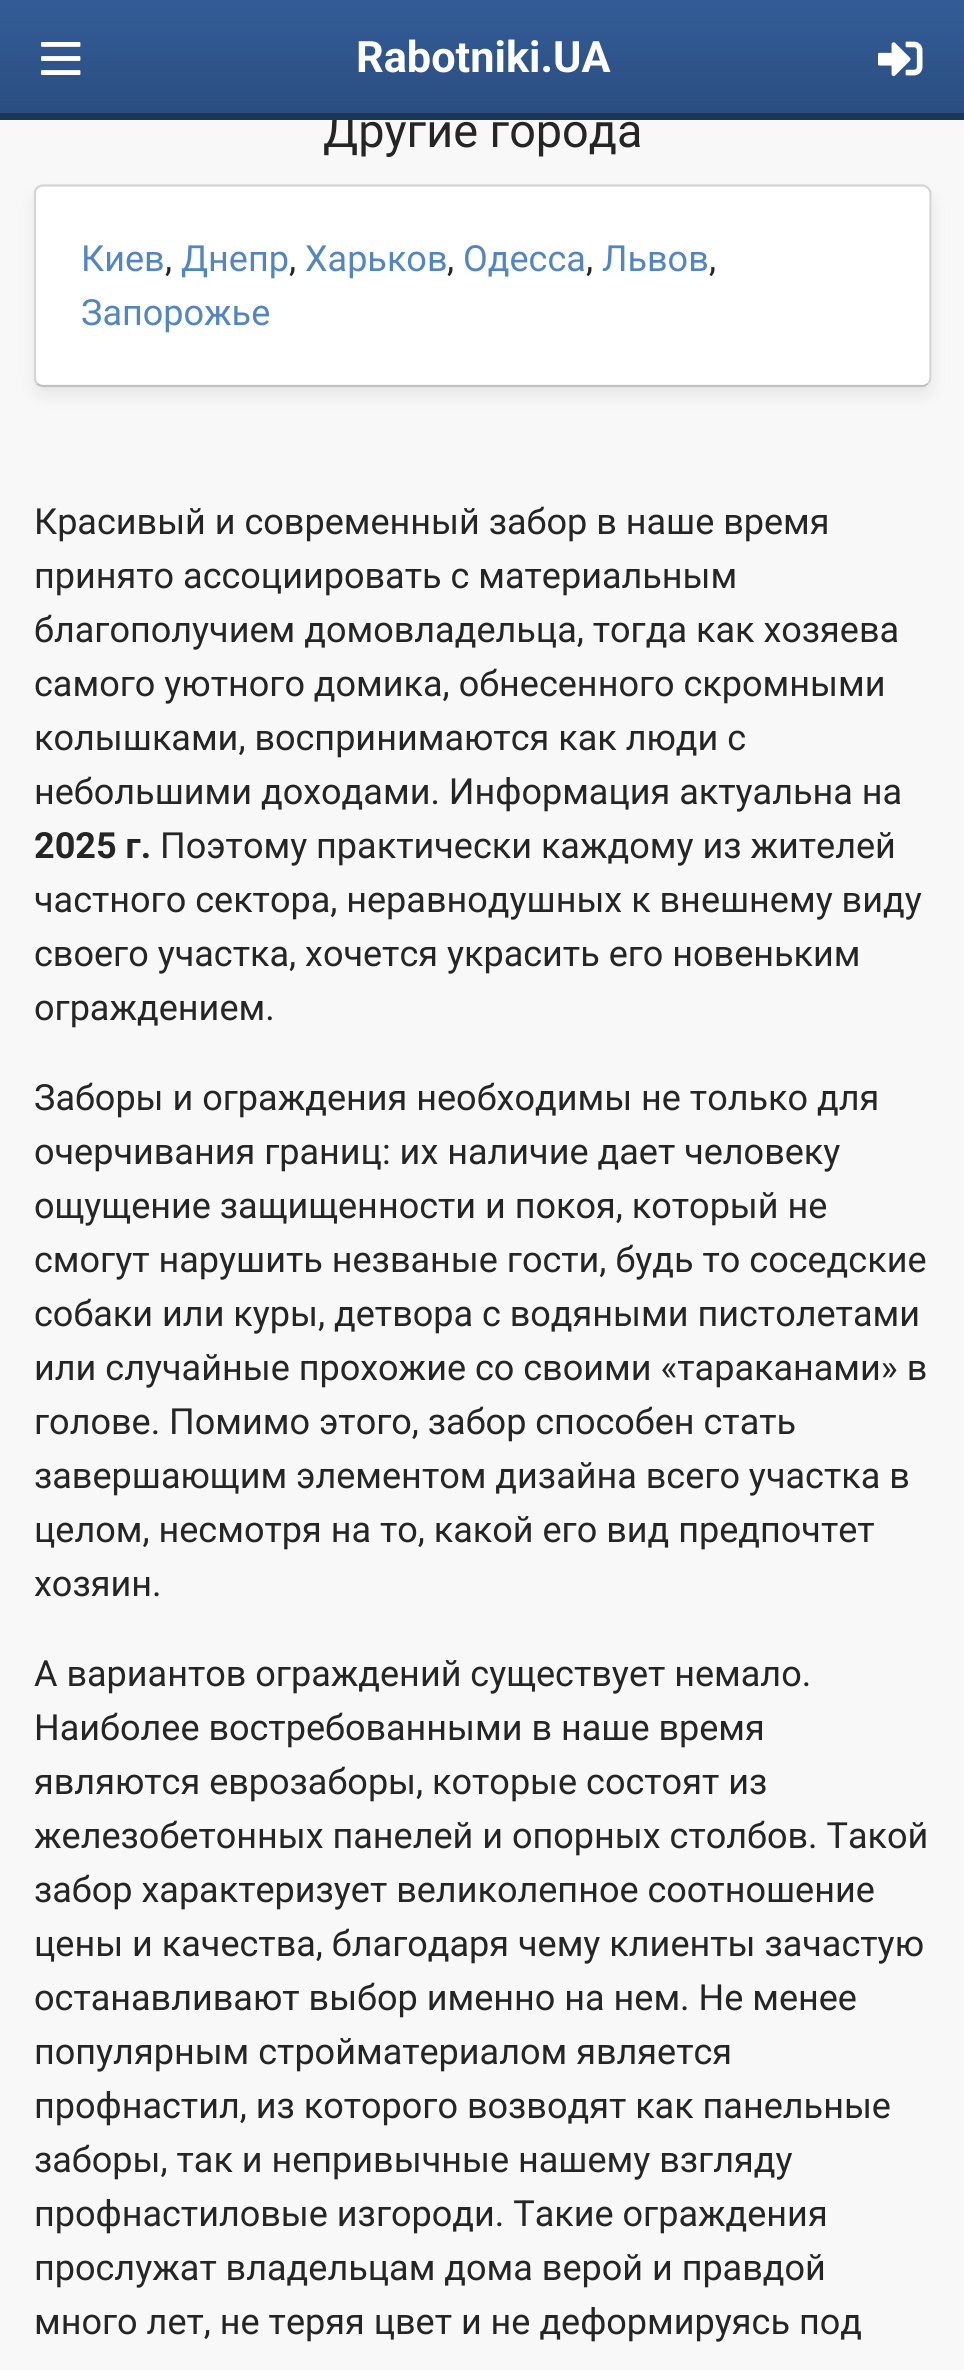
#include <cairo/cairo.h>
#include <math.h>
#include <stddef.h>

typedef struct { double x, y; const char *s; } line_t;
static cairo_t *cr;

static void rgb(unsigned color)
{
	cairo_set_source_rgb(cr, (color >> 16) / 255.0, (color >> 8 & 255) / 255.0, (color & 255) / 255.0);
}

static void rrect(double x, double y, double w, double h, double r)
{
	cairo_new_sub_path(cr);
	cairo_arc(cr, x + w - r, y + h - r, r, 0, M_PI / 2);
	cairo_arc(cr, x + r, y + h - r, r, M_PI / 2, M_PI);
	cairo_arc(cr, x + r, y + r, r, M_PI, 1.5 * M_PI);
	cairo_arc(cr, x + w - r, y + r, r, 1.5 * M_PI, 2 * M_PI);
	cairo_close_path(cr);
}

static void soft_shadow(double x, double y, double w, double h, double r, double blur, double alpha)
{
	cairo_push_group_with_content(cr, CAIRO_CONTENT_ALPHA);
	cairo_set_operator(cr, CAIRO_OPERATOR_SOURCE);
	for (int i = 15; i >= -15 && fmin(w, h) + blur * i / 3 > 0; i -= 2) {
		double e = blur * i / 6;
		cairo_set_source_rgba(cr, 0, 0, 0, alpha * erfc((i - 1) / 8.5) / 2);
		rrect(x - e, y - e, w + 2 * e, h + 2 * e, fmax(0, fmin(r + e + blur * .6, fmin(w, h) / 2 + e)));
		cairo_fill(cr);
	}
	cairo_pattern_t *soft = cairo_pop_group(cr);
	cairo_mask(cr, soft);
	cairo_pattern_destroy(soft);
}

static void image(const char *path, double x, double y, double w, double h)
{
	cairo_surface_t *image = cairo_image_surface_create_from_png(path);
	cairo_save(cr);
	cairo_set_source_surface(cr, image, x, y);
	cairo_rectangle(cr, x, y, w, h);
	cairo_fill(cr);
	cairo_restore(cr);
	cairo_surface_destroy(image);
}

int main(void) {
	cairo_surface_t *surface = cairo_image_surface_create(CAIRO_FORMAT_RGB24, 964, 2370);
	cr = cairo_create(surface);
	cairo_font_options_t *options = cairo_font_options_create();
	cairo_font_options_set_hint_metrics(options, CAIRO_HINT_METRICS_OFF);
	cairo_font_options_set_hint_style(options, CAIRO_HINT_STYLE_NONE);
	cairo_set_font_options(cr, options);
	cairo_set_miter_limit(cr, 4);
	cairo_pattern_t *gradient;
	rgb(0xf8f8f8);
	cairo_paint(cr);
	gradient = cairo_pattern_create_linear(483, 0, 483, 113);
	cairo_pattern_add_color_stop_rgba(gradient, 0, 0.2, 0.361, 0.592, 1);
	cairo_pattern_add_color_stop_rgba(gradient, 1, 0.169, 0.306, 0.506, 1);
	cairo_set_source(cr, gradient);
	cairo_pattern_destroy(gradient);
	cairo_rectangle(cr, 0, 0, 964, 113);
	cairo_fill(cr);
	image("img/1.png", 41, 42, 40, 33);
	image("img/2.png", 878, 41, 45, 36);
	rgb(0x000000);
	soft_shadow(34, 194, 898, 202, 9, 9, 0.07);
	rgb(0xffffff);
	rrect(34, 185, 898, 202, 9);
	cairo_fill(cr);
	cairo_new_path(cr);
	cairo_move_to(cr, 928, 383.5);
	cairo_curve_to(cr, 926.5, 385, 924.5, 386, 922.5, 386);
	cairo_line_to(cr, 43, 386);
	cairo_curve_to(cr, 41, 386, 38.5, 385, 37, 383.5);
	rgb(0xc0c0c0);
	cairo_set_line_width(cr, 2.2);
	cairo_stroke(cr);
	cairo_new_path(cr);
	cairo_move_to(cr, 37, 383.5);
	cairo_curve_to(cr, 35.5, 382, 35, 380, 35, 378);
	cairo_line_to(cr, 35, 193.5);
	cairo_curve_to(cr, 35, 191.5, 35.5, 189.5, 37, 188);
	cairo_curve_to(cr, 38.5, 186.5, 41, 185.5, 43, 185.5);
	cairo_line_to(cr, 922.5, 185.5);
	cairo_curve_to(cr, 924.5, 185.5, 926.5, 186.5, 928, 188);
	cairo_curve_to(cr, 929.5, 189.5, 930.5, 191.5, 930.5, 193.5);
	cairo_line_to(cr, 930.5, 378);
	cairo_curve_to(cr, 930.5, 380, 929.5, 382, 928, 383.5);
	rgb(0xd4d4d4);
	cairo_stroke(cr);
	cairo_select_font_face(cr, "Roboto", CAIRO_FONT_SLANT_NORMAL, CAIRO_FONT_WEIGHT_BOLD);
	cairo_set_font_size(cr, 43.25);
	rgb(0xffffff);
	cairo_move_to(cr, 356, 72);
	cairo_show_text(cr, "Rabotniki.UA");
	cairo_select_font_face(cr, "Roboto", CAIRO_FONT_SLANT_NORMAL, CAIRO_FONT_WEIGHT_NORMAL);
	cairo_set_font_size(cr, 46.75);
	rgb(0x252525);
	cairo_move_to(cr, 323, 147);
	cairo_show_text(cr, "Другие города");
	rgb(0x1d3557);
	cairo_rectangle(cr, 0, 113, 964, 7);
	cairo_fill(cr);
	cairo_set_font_size(cr, 36);
	rgb(0x5385c2);
	cairo_move_to(cr, 81, 271);
	cairo_show_text(cr, "Киев");
	rgb(0x252525);
	cairo_move_to(cr, 165, 271);
	cairo_show_text(cr, ",");
	rgb(0x5385c2);
	cairo_move_to(cr, 181, 271);
	cairo_show_text(cr, "Днепр");
	rgb(0x252525);
	cairo_move_to(cr, 289, 271);
	cairo_show_text(cr, ",");
	rgb(0x5385c2);
	cairo_move_to(cr, 305, 271);
	cairo_show_text(cr, "Харьков");
	rgb(0x252525);
	cairo_move_to(cr, 447, 271);
	cairo_show_text(cr, ",");
	rgb(0x5385c2);
	cairo_move_to(cr, 463, 271);
	cairo_show_text(cr, "Одесса");
	rgb(0x252525);
	cairo_move_to(cr, 586, 271);
	cairo_show_text(cr, ",");
	rgb(0x5385c2);
	cairo_move_to(cr, 602, 271);
	cairo_show_text(cr, "Львов");
	rgb(0x252525);
	cairo_move_to(cr, 709, 271);
	cairo_show_text(cr, ",");
	rgb(0x5385c2);
	cairo_move_to(cr, 81, 325);
	cairo_show_text(cr, "Запорожье");
	rgb(0x252525);
	{
		static const line_t items[] = {
			{34, 534, "Красивый и современный забор в наше время"},
			{34, 588, "принято ассоциировать с материальным"},
			{34, 642, "благополучием домовладельца, тогда как хозяева"},
			{34, 696, "самого уютного домика, обнесенного скромными"},
			{34, 750, "колышками, воспринимаются как люди с"},
			{34, 804, "небольшими доходами. Информация актуальна на"},
		};
		for (size_t i = 0; i < sizeof items / sizeof *items; i++) {
			cairo_move_to(cr, items[i].x, items[i].y);
			cairo_show_text(cr, items[i].s);
		}
	}
	cairo_select_font_face(cr, "Roboto", CAIRO_FONT_SLANT_NORMAL, CAIRO_FONT_WEIGHT_BOLD);
	cairo_move_to(cr, 34, 858);
	cairo_show_text(cr, "2025 г.");
	cairo_select_font_face(cr, "Roboto", CAIRO_FONT_SLANT_NORMAL, CAIRO_FONT_WEIGHT_NORMAL);
	{
		static const line_t items[] = {
			{160, 858, "Поэтому практически каждому из жителей"},
			{34, 912, "частного сектора, неравнодушных к внешнему виду"},
			{34, 966, "своего участка, хочется украсить его новеньким"},
			{34, 1020, "ограждением."},
			{34, 1110, "Заборы и ограждения необходимы не только для"},
			{34, 1164, "очерчивания границ: их наличие дает человеку"},
			{34, 1218, "ощущение защищенности и покоя, который не"},
			{34, 1272, "смогут нарушить незваные гости, будь то соседские"},
			{34, 1326, "собаки или куры, детвора с водяными пистолетами"},
			{34, 1380, "или случайные прохожие со своими «тараканами» в"},
			{34, 1434, "голове. Помимо этого, забор способен стать"},
			{34, 1488, "завершающим элементом дизайна всего участка в"},
			{34, 1542, "целом, несмотря на то, какой его вид предпочтет"},
			{34, 1596, "хозяин."},
			{34, 1686, "А вариантов ограждений существует немало."},
			{34, 1740, "Наиболее востребованными в наше время"},
			{34, 1794, "являются еврозаборы, которые состоят из"},
			{34, 1848, "железобетонных панелей и опорных столбов. Такой"},
			{34, 1902, "забор характеризует великолепное соотношение"},
			{34, 1956, "цены и качества, благодаря чему клиенты зачастую"},
			{34, 2010, "останавливают выбор именно на нем. Не менее"},
			{34, 2064, "популярным стройматериалом является"},
			{34, 2118, "профнастил, из которого возводят как панельные"},
			{34, 2172, "заборы, так и непривычные нашему взгляду"},
			{34, 2226, "профнастиловые изгороди. Такие ограждения"},
			{34, 2280, "прослужат владельцам дома верой и правдой"},
			{34, 2334, "много лет, не теряя цвет и не деформируясь под"},
		};
		for (size_t i = 0; i < sizeof items / sizeof *items; i++) {
			cairo_move_to(cr, items[i].x, items[i].y);
			cairo_show_text(cr, items[i].s);
		}
	}
	cairo_surface_write_to_png(surface, "page.png");
	cairo_font_options_destroy(options);
	cairo_destroy(cr);
	cairo_surface_destroy(surface);
	return 0;
}
